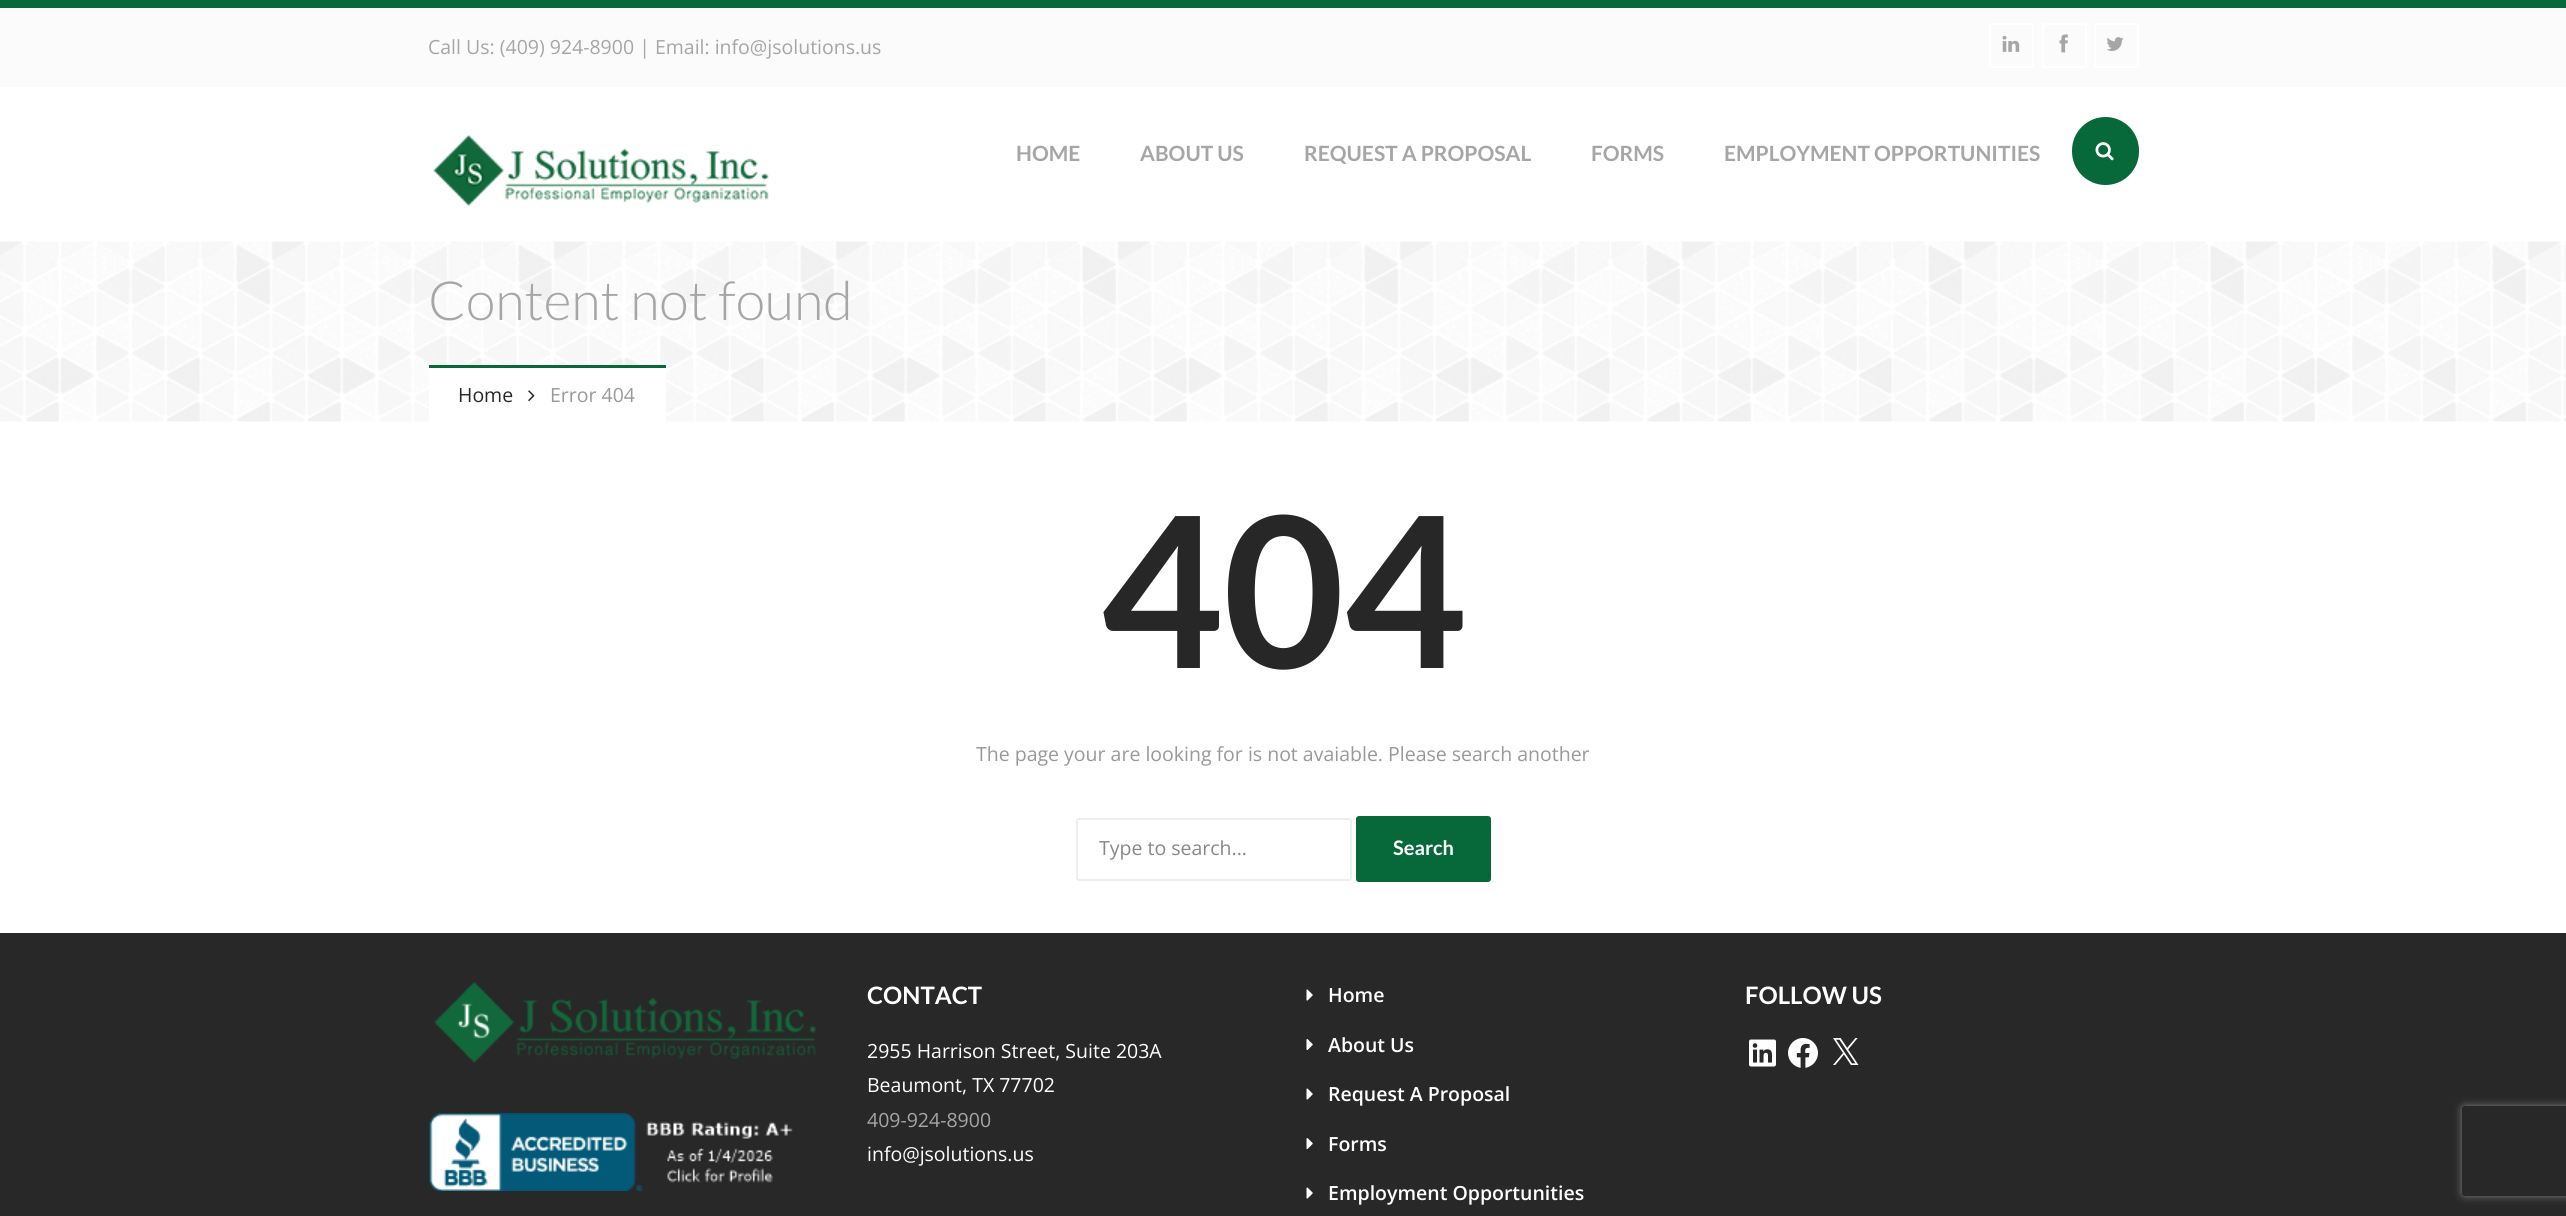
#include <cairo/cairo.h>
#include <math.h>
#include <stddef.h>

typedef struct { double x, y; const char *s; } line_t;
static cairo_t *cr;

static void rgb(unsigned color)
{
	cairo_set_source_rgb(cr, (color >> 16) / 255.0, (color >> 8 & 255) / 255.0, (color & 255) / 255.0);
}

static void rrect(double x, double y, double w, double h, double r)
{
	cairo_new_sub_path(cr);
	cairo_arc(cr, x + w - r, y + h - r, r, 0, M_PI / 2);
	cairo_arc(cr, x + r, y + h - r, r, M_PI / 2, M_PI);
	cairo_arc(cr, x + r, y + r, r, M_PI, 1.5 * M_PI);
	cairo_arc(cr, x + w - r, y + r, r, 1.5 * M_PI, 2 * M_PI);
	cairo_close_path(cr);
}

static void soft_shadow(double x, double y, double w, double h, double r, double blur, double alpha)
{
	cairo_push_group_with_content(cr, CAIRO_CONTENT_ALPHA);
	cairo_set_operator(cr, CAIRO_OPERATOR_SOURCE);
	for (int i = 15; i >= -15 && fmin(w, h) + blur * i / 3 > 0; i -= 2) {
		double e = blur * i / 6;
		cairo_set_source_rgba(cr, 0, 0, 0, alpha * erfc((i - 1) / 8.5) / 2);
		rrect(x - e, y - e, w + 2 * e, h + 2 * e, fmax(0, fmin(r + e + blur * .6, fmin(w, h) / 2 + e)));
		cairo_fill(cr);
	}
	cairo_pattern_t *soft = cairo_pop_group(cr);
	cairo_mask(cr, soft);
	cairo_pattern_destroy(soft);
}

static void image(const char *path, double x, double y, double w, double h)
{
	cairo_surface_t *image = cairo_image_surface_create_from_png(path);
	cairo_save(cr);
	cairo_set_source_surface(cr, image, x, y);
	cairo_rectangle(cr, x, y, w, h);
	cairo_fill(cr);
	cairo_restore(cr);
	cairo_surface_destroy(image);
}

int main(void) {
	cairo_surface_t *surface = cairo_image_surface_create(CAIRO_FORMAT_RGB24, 2566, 1216);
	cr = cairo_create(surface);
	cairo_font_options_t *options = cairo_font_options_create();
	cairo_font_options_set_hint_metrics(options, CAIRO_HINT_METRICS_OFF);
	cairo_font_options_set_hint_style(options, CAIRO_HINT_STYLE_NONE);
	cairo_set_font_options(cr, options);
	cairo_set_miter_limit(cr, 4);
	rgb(0xffffff);
	cairo_paint(cr);
	rgb(0x07683a);
	cairo_rectangle(cr, 0, 0, 2566, 8);
	cairo_fill(cr);
	rgb(0xfbfbfb);
	cairo_rectangle(cr, 0, 8, 2566, 79);
	cairo_fill(cr);
	cairo_rectangle(cr, 1990, 24, 43, 43);
	rgb(0xffffff);
	cairo_stroke(cr);
	image("img/1.png", 2002, 35, 18, 17);
	cairo_rectangle(cr, 2043, 24, 43, 43);
	cairo_stroke(cr);
	image("img/2.png", 2059, 34, 9, 19);
	cairo_rectangle(cr, 2095, 24, 43, 43);
	cairo_stroke(cr);
	image("img/3.png", 2106, 37, 18, 14);
	image("img/4.png", 433, 134, 336, 72);
	rgb(0x07683a);
	rrect(2072, 117, 67, 68, 33.5);
	cairo_fill(cr);
	image("img/5.png", 2095, 142, 19, 19);
	image("img/6.png", 0, 241, 2566, 181);
	rgb(0xffffff);
	cairo_rectangle(cr, 429, 368, 237, 54);
	cairo_fill(cr);
	rgb(0x07683a);
	cairo_rectangle(cr, 429, 365, 237, 3);
	cairo_fill(cr);
	image("img/7.png", 528, 390, 7, 12);
	rrect(1077, 819, 274, 61, 2);
	rgb(0xeeeeee);
	cairo_stroke(cr);
	rgb(0x07683a);
	rrect(1356, 816, 135, 66, 3);
	cairo_fill(cr);
	rgb(0x282828);
	cairo_rectangle(cr, 0, 933, 2566, 283);
	cairo_fill(cr);
	image("img/8.png", 434, 981, 382, 82);
	image("img/9.png", 429, 1113, 364, 78);
	image("img/10.png", 1306, 989, 7, 12);
	image("img/11.png", 1306, 1039, 7, 12);
	image("img/10.png", 1306, 1088, 7, 12);
	image("img/11.png", 1306, 1138, 7, 12);
	image("img/10.png", 1306, 1187, 7, 12);
	image("img/12.png", 1749, 1039, 27, 28);
	image("img/13.png", 1788, 1038, 30, 30);
	image("img/14.png", 1833, 1038, 26, 27);
	cairo_save(cr);
	cairo_set_fill_rule(cr, CAIRO_FILL_RULE_EVEN_ODD);
	cairo_new_path(cr);
	cairo_move_to(cr, 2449, 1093);
	cairo_line_to(cr, 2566, 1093);
	cairo_line_to(cr, 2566, 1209);
	cairo_line_to(cr, 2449, 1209);
	cairo_close_path(cr);
	cairo_move_to(cr, 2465, 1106);
	cairo_line_to(cr, 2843, 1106);
	cairo_curve_to(cr, 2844.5, 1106, 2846, 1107.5, 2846, 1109);
	cairo_line_to(cr, 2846, 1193);
	cairo_curve_to(cr, 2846, 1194.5, 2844.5, 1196, 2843, 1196);
	cairo_line_to(cr, 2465, 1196);
	cairo_curve_to(cr, 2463.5, 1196, 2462, 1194.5, 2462, 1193);
	cairo_line_to(cr, 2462, 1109);
	cairo_curve_to(cr, 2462, 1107.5, 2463.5, 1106, 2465, 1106);
	cairo_close_path(cr);
	cairo_clip(cr);
	rgb(0x808080);
	soft_shadow(2462, 1106, 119, 90, 3, 4, 1);
	cairo_restore(cr);
	cairo_select_font_face(cr, "Open Sans", CAIRO_FONT_SLANT_NORMAL, CAIRO_FONT_WEIGHT_NORMAL);
	cairo_set_font_size(cr, 19.5);
	rgb(0xa6a6a6);
	cairo_move_to(cr, 428, 54);
	cairo_show_text(cr, "Call Us: (409) 924-8900 | Email: info@jsolutions.us");
	cairo_select_font_face(cr, "Lato", CAIRO_FONT_SLANT_NORMAL, CAIRO_FONT_WEIGHT_BOLD);
	cairo_set_font_size(cr, 21);
	{
		static const line_t items[] = {
			{1016, 161, "HOME"},
			{1140, 161, "ABOUT US"},
			{1304, 161, "REQUEST A PROPOSAL"},
			{1591, 161, "FORMS"},
			{1724, 161, "EMPLOYMENT OPPORTUNITIES"},
		};
		for (size_t i = 0; i < sizeof items / sizeof *items; i++) {
			cairo_move_to(cr, items[i].x, items[i].y);
			cairo_show_text(cr, items[i].s);
		}
	}
	cairo_select_font_face(cr, "Lato Light", CAIRO_FONT_SLANT_NORMAL, CAIRO_FONT_WEIGHT_NORMAL);
	cairo_set_font_size(cr, 54);
	cairo_move_to(cr, 428, 320);
	cairo_show_text(cr, "Content not found");
	cairo_select_font_face(cr, "Open Sans", CAIRO_FONT_SLANT_NORMAL, CAIRO_FONT_WEIGHT_NORMAL);
	cairo_set_font_size(cr, 19.5);
	rgb(0x272727);
	cairo_move_to(cr, 458, 402);
	cairo_show_text(cr, "Home");
	rgb(0x999999);
	cairo_move_to(cr, 550, 402);
	cairo_show_text(cr, "Error 404");
	cairo_select_font_face(cr, "Lato", CAIRO_FONT_SLANT_NORMAL, CAIRO_FONT_WEIGHT_BOLD);
	cairo_set_font_size(cr, 210);
	rgb(0x272727);
	cairo_move_to(cr, 1101, 668);
	cairo_show_text(cr, "404");
	cairo_select_font_face(cr, "Open Sans", CAIRO_FONT_SLANT_NORMAL, CAIRO_FONT_WEIGHT_NORMAL);
	cairo_set_font_size(cr, 19.5);
	rgb(0x999999);
	cairo_move_to(cr, 976, 761);
	cairo_show_text(cr, "The page your are looking for is not avaiable. Please search another");
	rgb(0x888888);
	cairo_move_to(cr, 1099, 855);
	cairo_show_text(cr, "Type to search...");
	cairo_select_font_face(cr, "Lato", CAIRO_FONT_SLANT_NORMAL, CAIRO_FONT_WEIGHT_BOLD);
	cairo_set_font_size(cr, 20);
	rgb(0xffffff);
	cairo_move_to(cr, 1393, 855);
	cairo_show_text(cr, "Search");
	cairo_set_font_size(cr, 24);
	cairo_move_to(cr, 867, 1004);
	cairo_show_text(cr, "CONTACT");
	cairo_select_font_face(cr, "Open Sans", CAIRO_FONT_SLANT_NORMAL, CAIRO_FONT_WEIGHT_NORMAL);
	cairo_set_font_size(cr, 19.5);
	cairo_move_to(cr, 867, 1058);
	cairo_show_text(cr, "2955 Harrison Street, Suite 203A");
	cairo_move_to(cr, 867, 1092);
	cairo_show_text(cr, "Beaumont, TX 77702");
	rgb(0xa6a6a6);
	cairo_move_to(cr, 867, 1127);
	cairo_show_text(cr, "409-924-8900");
	rgb(0xffffff);
	cairo_move_to(cr, 867, 1161);
	cairo_show_text(cr, "info@jsolutions.us");
	cairo_select_font_face(cr, "Open Sans SemiBold", CAIRO_FONT_SLANT_NORMAL, CAIRO_FONT_WEIGHT_NORMAL);
	{
		static const line_t items[] = {
			{1328, 1002, "Home"},
			{1328, 1052, "About Us"},
			{1328, 1101, "Request A Proposal"},
			{1328, 1151, "Forms"},
			{1328, 1200, "Employment Opportunities"},
		};
		for (size_t i = 0; i < sizeof items / sizeof *items; i++) {
			cairo_move_to(cr, items[i].x, items[i].y);
			cairo_show_text(cr, items[i].s);
		}
	}
	cairo_select_font_face(cr, "Lato", CAIRO_FONT_SLANT_NORMAL, CAIRO_FONT_WEIGHT_BOLD);
	cairo_set_font_size(cr, 24);
	cairo_move_to(cr, 1745, 1004);
	cairo_show_text(cr, "FOLLOW US");
	cairo_surface_write_to_png(surface, "page.png");
	cairo_font_options_destroy(options);
	cairo_destroy(cr);
	cairo_surface_destroy(surface);
	return 0;
}
